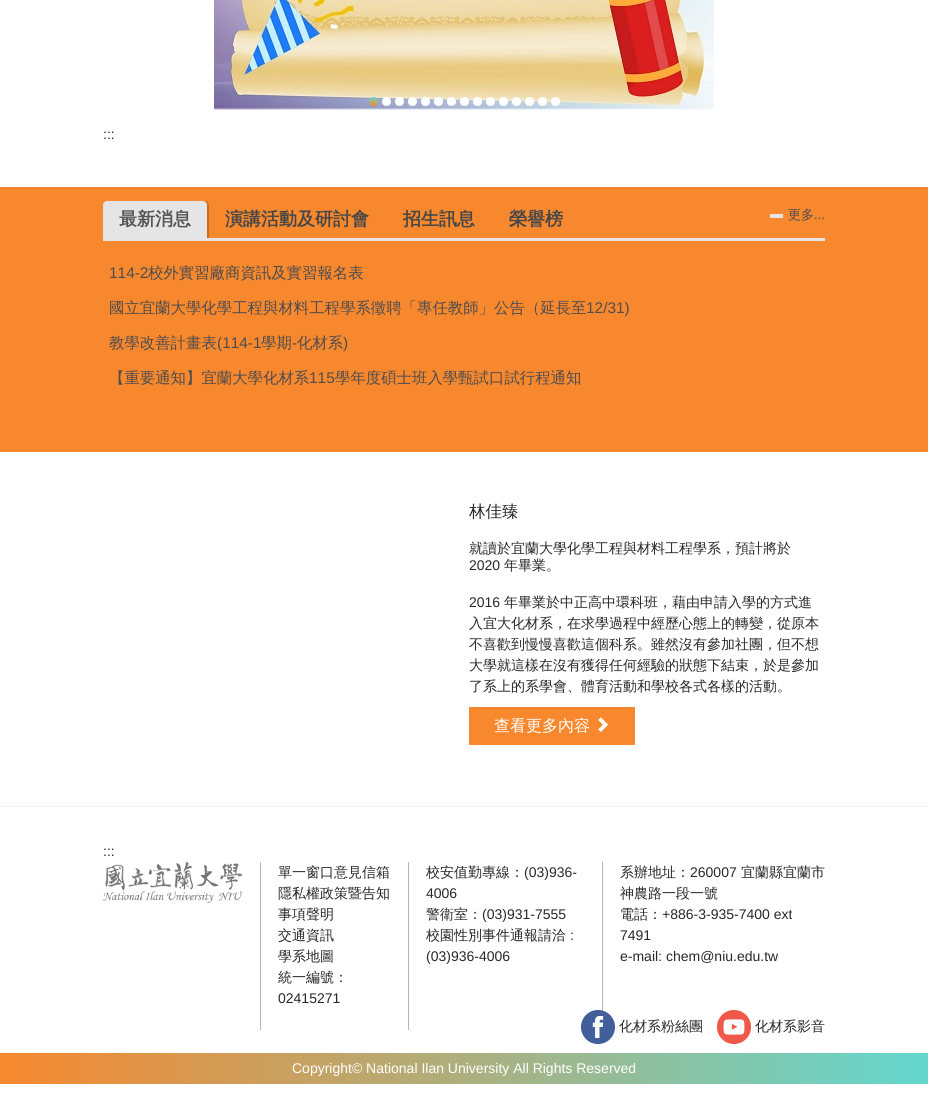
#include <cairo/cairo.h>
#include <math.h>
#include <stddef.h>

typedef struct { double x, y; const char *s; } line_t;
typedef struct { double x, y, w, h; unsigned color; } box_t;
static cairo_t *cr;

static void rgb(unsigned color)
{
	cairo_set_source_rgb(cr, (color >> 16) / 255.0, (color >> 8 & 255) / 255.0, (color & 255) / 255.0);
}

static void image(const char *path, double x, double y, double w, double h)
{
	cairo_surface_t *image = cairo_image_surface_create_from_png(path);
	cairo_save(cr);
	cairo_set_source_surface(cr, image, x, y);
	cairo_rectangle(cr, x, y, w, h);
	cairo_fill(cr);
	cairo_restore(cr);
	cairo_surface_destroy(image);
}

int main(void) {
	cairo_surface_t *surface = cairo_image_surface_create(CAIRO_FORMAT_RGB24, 928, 1115);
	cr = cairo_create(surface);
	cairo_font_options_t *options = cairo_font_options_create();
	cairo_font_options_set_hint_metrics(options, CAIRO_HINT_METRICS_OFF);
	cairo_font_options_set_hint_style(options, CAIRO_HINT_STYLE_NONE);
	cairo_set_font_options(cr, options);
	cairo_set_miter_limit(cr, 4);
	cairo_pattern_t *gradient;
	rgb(0xffffff);
	cairo_paint(cr);
	image("img/1.png", 214, 0, 500, 110);
	gradient = cairo_pattern_create_linear(373, 106, 373, 97);
	cairo_pattern_add_color_stop_rgba(gradient, 0, 0.969, 0.533, 0.18, 1);
	cairo_pattern_add_color_stop_rgba(gradient, 1, 0.384, 0.843, 0.808, 1);
	cairo_set_source(cr, gradient);
	cairo_pattern_destroy(gradient);
	cairo_arc(cr, 373.5, 101.5, 4.5, 0, 2 * M_PI);
	cairo_fill(cr);
	rgb(0xffffff);
	cairo_arc(cr, 386.5, 101.5, 4.5, 0, 2 * M_PI);
	cairo_fill(cr);
	cairo_arc(cr, 399.5, 101.5, 4.5, 0, 2 * M_PI);
	cairo_fill(cr);
	cairo_arc(cr, 412.5, 101.5, 4.5, 0, 2 * M_PI);
	cairo_fill(cr);
	cairo_arc(cr, 425.5, 101.5, 4.5, 0, 2 * M_PI);
	cairo_fill(cr);
	cairo_arc(cr, 438.5, 101.5, 4.5, 0, 2 * M_PI);
	cairo_fill(cr);
	cairo_arc(cr, 451.5, 101.5, 4.5, 0, 2 * M_PI);
	cairo_fill(cr);
	cairo_arc(cr, 464.5, 101.5, 4.5, 0, 2 * M_PI);
	cairo_fill(cr);
	cairo_arc(cr, 477.5, 101.5, 4.5, 0, 2 * M_PI);
	cairo_fill(cr);
	cairo_arc(cr, 490.5, 101.5, 4.5, 0, 2 * M_PI);
	cairo_fill(cr);
	cairo_arc(cr, 503.5, 101.5, 4.5, 0, 2 * M_PI);
	cairo_fill(cr);
	cairo_arc(cr, 516.5, 101.5, 4.5, 0, 2 * M_PI);
	cairo_fill(cr);
	cairo_arc(cr, 529.5, 101.5, 4.5, 0, 2 * M_PI);
	cairo_fill(cr);
	cairo_arc(cr, 542.5, 101.5, 4.5, 0, 2 * M_PI);
	cairo_fill(cr);
	cairo_arc(cr, 555.5, 101.5, 4.5, 0, 2 * M_PI);
	cairo_fill(cr);
	{
		static const box_t items[] = {
			{0, 187, 928, 265, 0xf7882e},
			{770, 214, 13, 4, 0xe5e5e5},
			{103, 238, 722, 3, 0xe5e5e5},
		};
		for (size_t i = 0; i < sizeof items / sizeof *items; i++) {
			rgb(items[i].color);
			cairo_rectangle(cr, items[i].x, items[i].y, items[i].w, items[i].h);
			cairo_fill(cr);
		}
	}
	rgb(0xc66d25);
	cairo_new_path(cr);
	cairo_move_to(cr, 207, 238);
	cairo_line_to(cr, 209, 238);
	cairo_line_to(cr, 209, 205);
	cairo_curve_to(cr, 209, 203, 207, 201, 205, 201);
	cairo_line_to(cr, 203, 201);
	cairo_curve_to(cr, 205, 201, 207, 203, 207, 205);
	cairo_close_path(cr);
	cairo_fill(cr);
	rgb(0xe5e5e5);
	cairo_new_path(cr);
	cairo_move_to(cr, 107, 201);
	cairo_line_to(cr, 203, 201);
	cairo_curve_to(cr, 205, 201, 207, 203, 207, 205);
	cairo_line_to(cr, 207, 238);
	cairo_line_to(cr, 103, 238);
	cairo_line_to(cr, 103, 205);
	cairo_curve_to(cr, 103, 203, 105, 201, 107, 201);
	cairo_close_path(cr);
	cairo_fill(cr);
	rgb(0xf7882e);
	cairo_rectangle(cr, 469, 707, 166, 38);
	cairo_fill(cr);
	image("img/2.png", 598, 717, 11, 15);
	rgb(0xeeeeee);
	cairo_rectangle(cr, 0, 806, 928, 1);
	cairo_fill(cr);
	image("img/3.png", 103, 862, 140, 41);
	{
		static const box_t items[] = {
			{260, 862, 1, 168, 0xb5b5b5},
			{408, 862, 1, 168, 0xb5b5b5},
			{602, 862, 1, 149, 0xb5b5b5},
		};
		for (size_t i = 0; i < sizeof items / sizeof *items; i++) {
			rgb(items[i].color);
			cairo_rectangle(cr, items[i].x, items[i].y, items[i].w, items[i].h);
			cairo_fill(cr);
		}
	}
	image("img/4.png", 581, 1010, 34, 34);
	image("img/5.png", 717, 1010, 34, 34);
	gradient = cairo_pattern_create_linear(0, 1069, 928, 1069);
	cairo_pattern_add_color_stop_rgba(gradient, 0, 0.969, 0.533, 0.18, 1);
	cairo_pattern_add_color_stop_rgba(gradient, 1, 0.384, 0.843, 0.808, 1);
	cairo_set_source(cr, gradient);
	cairo_pattern_destroy(gradient);
	cairo_rectangle(cr, 0, 1053, 928, 31);
	cairo_fill(cr);
	cairo_select_font_face(cr, "Liberation Sans", CAIRO_FONT_SLANT_NORMAL, CAIRO_FONT_WEIGHT_NORMAL);
	cairo_set_font_size(cr, 14);
	rgb(0x282828);
	cairo_move_to(cr, 103, 139);
	cairo_show_text(cr, ":::");
	cairo_select_font_face(cr, "WenQuanYi Zen Hei Medium", CAIRO_FONT_SLANT_NORMAL, CAIRO_FONT_WEIGHT_NORMAL);
	cairo_set_font_size(cr, 13);
	rgb(0x4e4c4d);
	cairo_move_to(cr, 788, 219);
	cairo_show_text(cr, "更多");
	cairo_select_font_face(cr, "Liberation Sans", CAIRO_FONT_SLANT_NORMAL, CAIRO_FONT_WEIGHT_NORMAL);
	cairo_move_to(cr, 814, 219);
	cairo_show_text(cr, "...");
	cairo_set_font_size(cr, 15.4);
	cairo_move_to(cr, 109, 278);
	cairo_show_text(cr, "114-2");
	cairo_select_font_face(cr, "WenQuanYi Zen Hei Medium", CAIRO_FONT_SLANT_NORMAL, CAIRO_FONT_WEIGHT_NORMAL);
	cairo_move_to(cr, 148, 278);
	cairo_show_text(cr, "校外實習廠商資訊及實習報名表");
	cairo_move_to(cr, 109, 313);
	cairo_show_text(cr, "國立宜蘭大學化學工程與材料工程學系徵聘「專任教師」公告（延長至");
	cairo_select_font_face(cr, "Liberation Sans", CAIRO_FONT_SLANT_NORMAL, CAIRO_FONT_WEIGHT_NORMAL);
	cairo_move_to(cr, 586, 313);
	cairo_show_text(cr, "12/31)");
	cairo_select_font_face(cr, "WenQuanYi Zen Hei Medium", CAIRO_FONT_SLANT_NORMAL, CAIRO_FONT_WEIGHT_NORMAL);
	cairo_move_to(cr, 109, 348);
	cairo_show_text(cr, "教學改善計畫表");
	cairo_select_font_face(cr, "Liberation Sans", CAIRO_FONT_SLANT_NORMAL, CAIRO_FONT_WEIGHT_NORMAL);
	cairo_move_to(cr, 217, 348);
	cairo_show_text(cr, "(114-1");
	cairo_select_font_face(cr, "WenQuanYi Zen Hei Medium", CAIRO_FONT_SLANT_NORMAL, CAIRO_FONT_WEIGHT_NORMAL);
	cairo_move_to(cr, 261, 348);
	cairo_show_text(cr, "學期");
	cairo_select_font_face(cr, "Liberation Sans", CAIRO_FONT_SLANT_NORMAL, CAIRO_FONT_WEIGHT_NORMAL);
	cairo_move_to(cr, 292, 348);
	cairo_show_text(cr, "-");
	cairo_select_font_face(cr, "WenQuanYi Zen Hei Medium", CAIRO_FONT_SLANT_NORMAL, CAIRO_FONT_WEIGHT_NORMAL);
	cairo_move_to(cr, 297, 348);
	cairo_show_text(cr, "化材系");
	cairo_select_font_face(cr, "Liberation Sans", CAIRO_FONT_SLANT_NORMAL, CAIRO_FONT_WEIGHT_NORMAL);
	cairo_move_to(cr, 343, 348);
	cairo_show_text(cr, ")");
	cairo_select_font_face(cr, "WenQuanYi Zen Hei Medium", CAIRO_FONT_SLANT_NORMAL, CAIRO_FONT_WEIGHT_NORMAL);
	cairo_move_to(cr, 109, 383);
	cairo_show_text(cr, "【重要通知】宜蘭大學化材系");
	cairo_select_font_face(cr, "Liberation Sans", CAIRO_FONT_SLANT_NORMAL, CAIRO_FONT_WEIGHT_NORMAL);
	cairo_move_to(cr, 309, 383);
	cairo_show_text(cr, "115");
	cairo_select_font_face(cr, "WenQuanYi Zen Hei Medium", CAIRO_FONT_SLANT_NORMAL, CAIRO_FONT_WEIGHT_NORMAL);
	cairo_move_to(cr, 335, 383);
	cairo_show_text(cr, "學年度碩士班入學甄試口試行程通知");
	cairo_select_font_face(cr, "WenQuanYi Zen Hei", CAIRO_FONT_SLANT_NORMAL, CAIRO_FONT_WEIGHT_BOLD);
	cairo_set_font_size(cr, 18);
	rgb(0x555555);
	cairo_move_to(cr, 119, 225);
	cairo_show_text(cr, "最新消息");
	rgb(0x484747);
	{
		static const line_t items[] = {
			{225, 225, "演講活動及研討會"},
			{403, 225, "招生訊息"},
			{509, 225, "榮譽榜"},
		};
		for (size_t i = 0; i < sizeof items / sizeof *items; i++) {
			cairo_move_to(cr, items[i].x, items[i].y);
			cairo_show_text(cr, items[i].s);
		}
	}
	cairo_select_font_face(cr, "WenQuanYi Zen Hei Medium", CAIRO_FONT_SLANT_NORMAL, CAIRO_FONT_WEIGHT_NORMAL);
	cairo_set_font_size(cr, 16.5);
	rgb(0x282828);
	cairo_move_to(cr, 469, 517);
	cairo_show_text(cr, "林佳臻");
	cairo_set_font_size(cr, 14);
	cairo_move_to(cr, 469, 553);
	cairo_show_text(cr, "就讀於宜蘭大學化學工程與材料工程學系，預計將於");
	cairo_select_font_face(cr, "Liberation Sans", CAIRO_FONT_SLANT_NORMAL, CAIRO_FONT_WEIGHT_NORMAL);
	cairo_move_to(cr, 469, 570);
	cairo_show_text(cr, "2020");
	cairo_select_font_face(cr, "WenQuanYi Zen Hei Medium", CAIRO_FONT_SLANT_NORMAL, CAIRO_FONT_WEIGHT_NORMAL);
	cairo_move_to(cr, 504, 570);
	cairo_show_text(cr, "年畢業。");
	cairo_select_font_face(cr, "Liberation Sans", CAIRO_FONT_SLANT_NORMAL, CAIRO_FONT_WEIGHT_NORMAL);
	cairo_move_to(cr, 469, 607);
	cairo_show_text(cr, "2016");
	cairo_select_font_face(cr, "WenQuanYi Zen Hei Medium", CAIRO_FONT_SLANT_NORMAL, CAIRO_FONT_WEIGHT_NORMAL);
	{
		static const line_t items[] = {
			{504, 607, "年畢業於中正高中環科班，藉由申請入學的方式進"},
			{469, 628, "入宜大化材系，在求學過程中經歷心態上的轉變，從原本"},
			{469, 649, "不喜歡到慢慢喜歡這個科系。雖然沒有參加社團，但不想"},
			{469, 670, "大學就這樣在沒有獲得任何經驗的狀態下結束，於是參加"},
			{469, 691, "了系上的系學會、體育活動和學校各式各樣的活動。"},
		};
		for (size_t i = 0; i < sizeof items / sizeof *items; i++) {
			cairo_move_to(cr, items[i].x, items[i].y);
			cairo_show_text(cr, items[i].s);
		}
	}
	cairo_set_font_size(cr, 16);
	rgb(0xffffff);
	cairo_move_to(cr, 494, 731);
	cairo_show_text(cr, "查看更多內容");
	cairo_select_font_face(cr, "Liberation Sans", CAIRO_FONT_SLANT_NORMAL, CAIRO_FONT_WEIGHT_NORMAL);
	cairo_set_font_size(cr, 14);
	rgb(0x282828);
	cairo_move_to(cr, 103, 856);
	cairo_show_text(cr, ":::");
	cairo_select_font_face(cr, "WenQuanYi Zen Hei Medium", CAIRO_FONT_SLANT_NORMAL, CAIRO_FONT_WEIGHT_NORMAL);
	{
		static const line_t items[] = {
			{278, 877, "單一窗口意見信箱"},
			{278, 898, "隱私權政策暨告知"},
			{278, 919, "事項聲明"},
			{278, 940, "交通資訊"},
			{278, 961, "學系地圖"},
			{278, 982, "統一編號："},
		};
		for (size_t i = 0; i < sizeof items / sizeof *items; i++) {
			cairo_move_to(cr, items[i].x, items[i].y);
			cairo_show_text(cr, items[i].s);
		}
	}
	cairo_select_font_face(cr, "Liberation Sans", CAIRO_FONT_SLANT_NORMAL, CAIRO_FONT_WEIGHT_NORMAL);
	cairo_move_to(cr, 278, 1003);
	cairo_show_text(cr, "02415271");
	cairo_select_font_face(cr, "WenQuanYi Zen Hei Medium", CAIRO_FONT_SLANT_NORMAL, CAIRO_FONT_WEIGHT_NORMAL);
	cairo_move_to(cr, 426, 877);
	cairo_show_text(cr, "校安值勤專線：");
	cairo_select_font_face(cr, "Liberation Sans", CAIRO_FONT_SLANT_NORMAL, CAIRO_FONT_WEIGHT_NORMAL);
	cairo_move_to(cr, 524, 877);
	cairo_show_text(cr, "(03)936-");
	cairo_move_to(cr, 426, 898);
	cairo_show_text(cr, "4006");
	cairo_select_font_face(cr, "WenQuanYi Zen Hei Medium", CAIRO_FONT_SLANT_NORMAL, CAIRO_FONT_WEIGHT_NORMAL);
	cairo_move_to(cr, 426, 919);
	cairo_show_text(cr, "警衛室：");
	cairo_select_font_face(cr, "Liberation Sans", CAIRO_FONT_SLANT_NORMAL, CAIRO_FONT_WEIGHT_NORMAL);
	cairo_move_to(cr, 482, 919);
	cairo_show_text(cr, "(03)931-7555");
	cairo_select_font_face(cr, "WenQuanYi Zen Hei Medium", CAIRO_FONT_SLANT_NORMAL, CAIRO_FONT_WEIGHT_NORMAL);
	cairo_move_to(cr, 426, 940);
	cairo_show_text(cr, "校園性別事件通報請洽");
	cairo_select_font_face(cr, "Liberation Sans", CAIRO_FONT_SLANT_NORMAL, CAIRO_FONT_WEIGHT_NORMAL);
	cairo_move_to(cr, 570, 940);
	cairo_show_text(cr, ":");
	cairo_move_to(cr, 426, 961);
	cairo_show_text(cr, "(03)936-4006");
	cairo_select_font_face(cr, "WenQuanYi Zen Hei Medium", CAIRO_FONT_SLANT_NORMAL, CAIRO_FONT_WEIGHT_NORMAL);
	cairo_move_to(cr, 620, 877);
	cairo_show_text(cr, "系辦地址：");
	cairo_select_font_face(cr, "Liberation Sans", CAIRO_FONT_SLANT_NORMAL, CAIRO_FONT_WEIGHT_NORMAL);
	cairo_move_to(cr, 690, 877);
	cairo_show_text(cr, "260007");
	cairo_select_font_face(cr, "WenQuanYi Zen Hei Medium", CAIRO_FONT_SLANT_NORMAL, CAIRO_FONT_WEIGHT_NORMAL);
	{
		static const line_t items[] = {
			{741, 877, "宜蘭縣宜蘭市"},
			{620, 898, "神農路一段一號"},
			{620, 919, "電話："},
		};
		for (size_t i = 0; i < sizeof items / sizeof *items; i++) {
			cairo_move_to(cr, items[i].x, items[i].y);
			cairo_show_text(cr, items[i].s);
		}
	}
	cairo_select_font_face(cr, "Liberation Sans", CAIRO_FONT_SLANT_NORMAL, CAIRO_FONT_WEIGHT_NORMAL);
	{
		static const line_t items[] = {
			{662, 919, "+886-3-935-7400 ext"},
			{620, 940, "7491"},
			{620, 961, "e-mail: chem@niu.edu.tw"},
		};
		for (size_t i = 0; i < sizeof items / sizeof *items; i++) {
			cairo_move_to(cr, items[i].x, items[i].y);
			cairo_show_text(cr, items[i].s);
		}
	}
	cairo_select_font_face(cr, "WenQuanYi Zen Hei Medium", CAIRO_FONT_SLANT_NORMAL, CAIRO_FONT_WEIGHT_NORMAL);
	cairo_move_to(cr, 619, 1031);
	cairo_show_text(cr, "化材系粉絲團");
	cairo_move_to(cr, 755, 1031);
	cairo_show_text(cr, "化材系影音");
	cairo_select_font_face(cr, "Liberation Sans", CAIRO_FONT_SLANT_NORMAL, CAIRO_FONT_WEIGHT_NORMAL);
	rgb(0xffffff);
	cairo_move_to(cr, 292, 1073);
	cairo_show_text(cr, "Copyright© National Ilan University All Rights Reserved");
	cairo_surface_write_to_png(surface, "page.png");
	cairo_font_options_destroy(options);
	cairo_destroy(cr);
	cairo_surface_destroy(surface);
	return 0;
}
